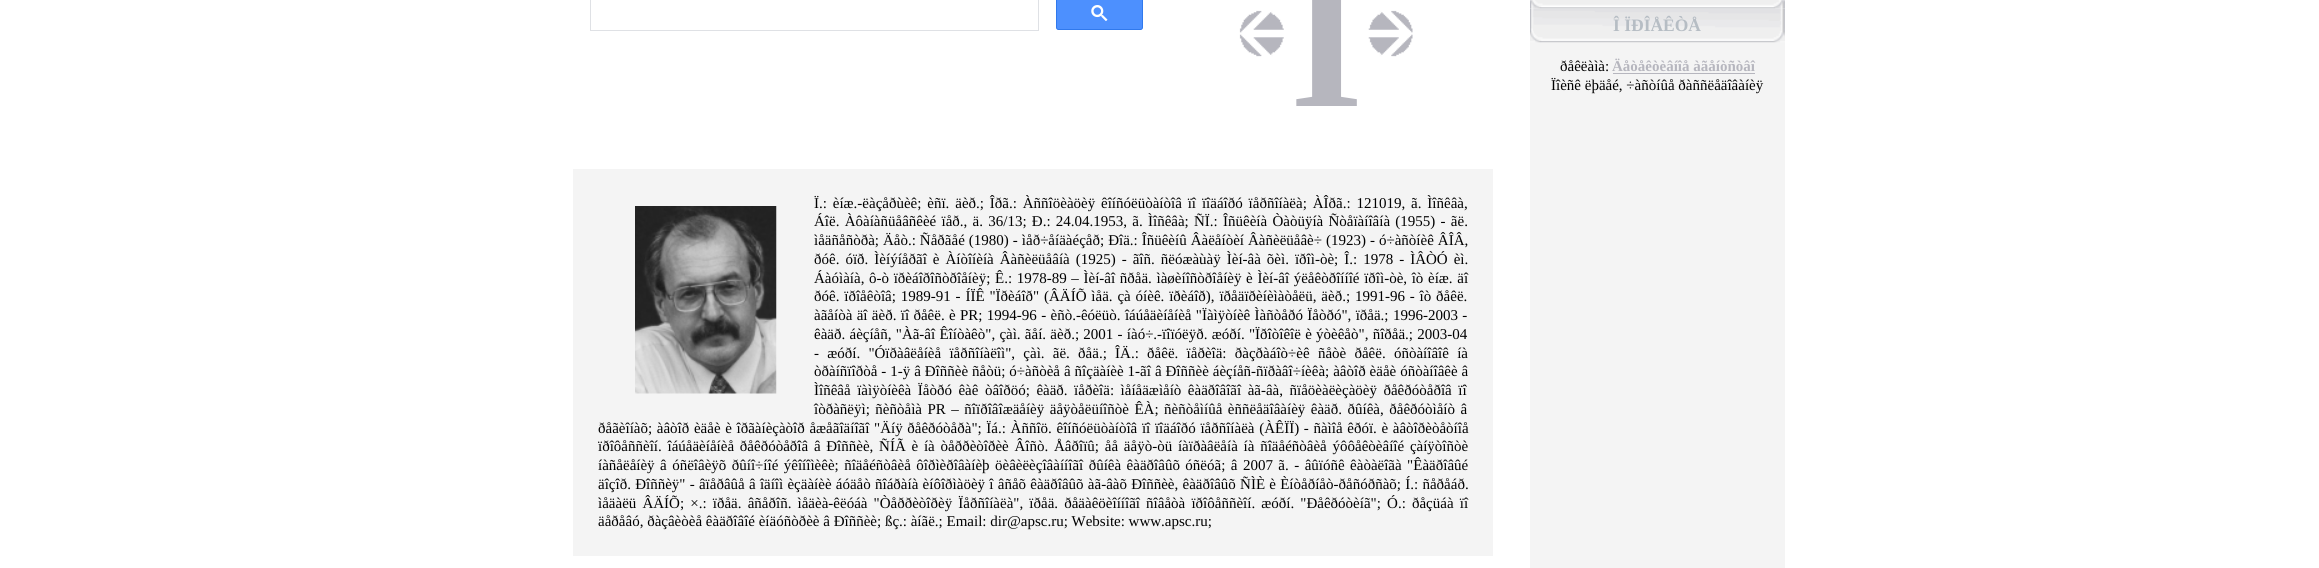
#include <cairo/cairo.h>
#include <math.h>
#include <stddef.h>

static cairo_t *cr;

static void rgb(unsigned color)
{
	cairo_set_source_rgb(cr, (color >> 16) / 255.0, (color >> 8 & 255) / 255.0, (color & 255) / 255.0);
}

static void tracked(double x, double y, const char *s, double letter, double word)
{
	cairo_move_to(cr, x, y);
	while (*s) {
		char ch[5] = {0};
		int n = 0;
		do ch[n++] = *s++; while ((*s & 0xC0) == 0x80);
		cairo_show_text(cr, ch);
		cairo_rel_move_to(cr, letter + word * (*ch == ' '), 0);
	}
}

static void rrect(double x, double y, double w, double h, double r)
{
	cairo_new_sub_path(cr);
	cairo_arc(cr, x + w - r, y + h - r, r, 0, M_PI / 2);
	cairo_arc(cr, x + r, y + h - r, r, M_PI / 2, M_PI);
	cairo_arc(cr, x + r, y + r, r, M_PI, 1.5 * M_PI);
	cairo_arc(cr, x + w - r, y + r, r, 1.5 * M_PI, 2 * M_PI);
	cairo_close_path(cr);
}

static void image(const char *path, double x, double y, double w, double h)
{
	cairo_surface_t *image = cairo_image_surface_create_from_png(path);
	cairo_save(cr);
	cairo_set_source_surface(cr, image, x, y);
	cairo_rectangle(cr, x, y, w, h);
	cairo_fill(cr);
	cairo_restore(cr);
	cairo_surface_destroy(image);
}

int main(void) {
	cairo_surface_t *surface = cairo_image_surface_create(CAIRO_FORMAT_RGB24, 2319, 568);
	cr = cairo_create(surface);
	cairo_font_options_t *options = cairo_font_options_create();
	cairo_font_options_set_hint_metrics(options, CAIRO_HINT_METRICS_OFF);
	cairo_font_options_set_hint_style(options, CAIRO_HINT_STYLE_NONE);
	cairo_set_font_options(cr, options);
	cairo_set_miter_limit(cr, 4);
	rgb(0xffffff);
	cairo_paint(cr);
	cairo_rectangle(cr, 590.5, -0.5, 448, 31);
	rgb(0xdfe1e5);
	cairo_set_line_width(cr, 1);
	cairo_stroke(cr);
	rgb(0x4d90fe);
	rrect(1056.5, -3.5, 86, 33, 2);
	cairo_fill_preserve(cr);
	rgb(0x3079ed);
	cairo_stroke(cr);
	image("img/1.png", 1091, 5, 17, 16);
	image("img/2.png", 1239, 10, 45, 47);
	image("img/3.png", 1368, 10, 45, 47);
	rgb(0xf4f4f4);
	cairo_rectangle(cr, 573, 169, 920, 387);
	cairo_fill(cr);
	image("img/4.png", 635, 206, 142, 188);
	cairo_rectangle(cr, 1530, 8, 255, 560);
	cairo_fill(cr);
	image("img/5.png", 1530, 0, 255, 9);
	image("img/6.png", 1530, 8, 255, 35);
	rgb(0xb6b6be);
	cairo_rectangle(cr, 1613, 73, 142, 1);
	cairo_fill(cr);
	cairo_select_font_face(cr, "Liberation Serif", CAIRO_FONT_SLANT_NORMAL, CAIRO_FONT_WEIGHT_BOLD);
	cairo_set_font_size(cr, 188);
	cairo_move_to(cr, 1290, 106);
	cairo_show_text(cr, "Î");
	cairo_select_font_face(cr, "Liberation Serif", CAIRO_FONT_SLANT_NORMAL, CAIRO_FONT_WEIGHT_NORMAL);
	cairo_set_font_size(cr, 15);
	rgb(0x000000);
	tracked(814, 208, "Ï.: èíæ.-ëàçåðùèê; èñï. äèð.; Îðã.: Àññîöèàöèÿ êîíñóëüòàíòîâ ïî ïîäáîðó ïåðñîíàëà; ÀÎðã.: 121019, ã. Ìîñêâà,", 0, 2.1);
	tracked(814, 226, "Áîë. Àôàíàñüåâñêèé ïåð., ä. 36/13; Ð.: 24.04.1953, ã. Ìîñêâà; ÑÏ.: Îñüêèíà Òàòüÿíà Ñòåïàíîâíà (1955) - ãë.", 0, 1.5);
	tracked(814, 245, "ìåäñåñòðà; Äåò.: Ñåðãåé (1980) - ìåð÷åíäàéçåð; Ðîä.: Îñüêèíû Âàëåíòèí Âàñèëüåâè÷ (1923) - ó÷àñòíèê ÂÎÂ,", 0, 0.25);
	tracked(814, 264, "ðóê. óïð. Ìèíýíåðãî è Àíòîíèíà Âàñèëüåâíà (1925) - ãîñ. ñëóæàùàÿ Ìèí-âà õèì. ïðîì-òè; Î.: 1978 - ÌÂÒÓ èì.", 0, 2.25);
	tracked(814, 283, "Áàóìàíà, ô-ò ïðèáîðîñòðîåíèÿ; Ê.: 1978-89 – Ìèí-âî ñðåä. ìàøèíîñòðîåíèÿ è Ìèí-âî ýëåêòðîííîé ïðîì-òè, îò èíæ. äî", 0, 0.9);
	tracked(814, 301, "ðóê. ïðîåêòîâ; 1989-91 - ÍÏÊ \"Ïðèáîð\" (ÂÄÍÕ ìåä. çà óíèê. ïðèáîð), ïðåäïðèíèìàòåëü, äèð.; 1991-96 - îò ðåêë.", 0, 1.1);
	tracked(814, 320, "àãåíòà äî äèð. ïî ðåêë. è PR; 1994-96 - èñò.-êóëüò. îáúåäèíåíèå \"Ïàìÿòíèê Ìàñòåðó Ïåòðó\", ïðåä.; 1996-2003 -", 0, 0.6);
	tracked(814, 339, "êàäð. áèçíåñ, \"Àã-âî Êîíòàêò\", çàì. ãåí. äèð.; 2001 - íàó÷.-ïîïóëÿð. æóðí. \"Ïðîòîêîë è ýòèêåò\", ñîðåä.; 2003-04", 0, 0.5);
	tracked(814, 358, "- æóðí. \"Óïðàâëåíèå ïåðñîíàëîì\", çàì. ãë. ðåä.; ÎÄ.: ðåêë. ïåðèîä: ðàçðàáîò÷èê ñåòè ðåêë. óñòàíîâîê íà", 0, 4.5);
	tracked(814, 376, "òðàíñïîðòå - 1-ÿ â Ðîññèè ñåòü; ó÷àñòèå â ñîçäàíèè 1-ãî â Ðîññèè áèçíåñ-ñïðàâî÷íèêà; àâòîð èäåè óñòàíîâêè â", 0, 0.2);
	tracked(814, 395, "Ìîñêâå ïàìÿòíèêà Ïåòðó êàê òâîðöó; êàäð. ïåðèîä: ìåíåäæìåíò êàäðîâîãî àã-âà, ñïåöèàëèçàöèÿ ðåêðóòåðîâ ïî", 0, 2.75);
	tracked(814, 414, "îòðàñëÿì; ñèñòåìà PR – ñîïðîâîæäåíèÿ äåÿòåëüíîñòè ÊÀ; ñèñòåìíûå èññëåäîâàíèÿ êàäð. ðûíêà, ðåêðóòìåíò â", 0, 1.75);
	tracked(598, 433, "ðåãèîíàõ; àâòîð èäåè è îðãàíèçàòîð åæåãîäíîãî \"Äíÿ ðåêðóòåðà\"; Ïá.: Àññîö. êîíñóëüòàíòîâ ïî ïîäáîðó ïåðñîíàëà (ÀÊÏÏ) - ñàìîå êðóï. è àâòîðèòåòíîå", 0, 0.9);
	tracked(598, 451, "ïðîôåññèîí. îáúåäèíåíèå ðåêðóòåðîâ â Ðîññèè, ÑÍÃ è íà òåððèòîðèè Âîñò. Åâðîïû; åå äåÿò-òü íàïðàâëåíà íà ñîäåéñòâèå ýôôåêòèâíîé çàíÿòîñòè", 0, 2);
	tracked(598, 470, "íàñåëåíèÿ â óñëîâèÿõ ðûíî÷íîé ýêîíîìèêè; ñîäåéñòâèå ôîðìèðîâàíèþ öèâèëèçîâàííîãî ðûíêà êàäðîâûõ óñëóã; â 2007 ã. - âûïóñê êàòàëîãà \"Êàäðîâûé", 0, 1.7);
	tracked(598, 489, "äîçîð. Ðîññèÿ\" - âïåðâûå â îäíîì èçäàíèè áóäåò ñîáðàíà èíôîðìàöèÿ î âñåõ êàäðîâûõ àã-âàõ Ðîññèè, êàäðîâûõ ÑÌÈ è Èíòåðíåò-ðåñóðñàõ; Í.: ñåðåáð.", 0, 0.5);
	tracked(598, 508, "ìåäàëü ÂÄÍÕ; ×.: ïðåä. âñåðîñ. ìåäèà-êëóáà \"Òåððèòîðèÿ Ïåðñîíàëà\", ïðåä. ðåäàêöèîííîãî ñîâåòà ïðîôåññèîí. æóðí. \"Ðåêðóòèíã\"; Ó.: ðåçüáà ïî", 0, 2.4);
	cairo_move_to(cr, 598, 526);
	cairo_show_text(cr, "äåðåâó, ðàçâèòèå êàäðîâîé èíäóñòðèè â Ðîññèè; ßç.: àíãë.; Email: dir@apsc.ru; Website: www.apsc.ru;");
	cairo_select_font_face(cr, "Liberation Serif", CAIRO_FONT_SLANT_NORMAL, CAIRO_FONT_WEIGHT_BOLD);
	cairo_set_font_size(cr, 17.5);
	rgb(0xb6bdc4);
	cairo_move_to(cr, 1613, 31);
	cairo_show_text(cr, "Î ÏÐÎÅÊÒÅ");
	cairo_select_font_face(cr, "Liberation Serif", CAIRO_FONT_SLANT_NORMAL, CAIRO_FONT_WEIGHT_NORMAL);
	cairo_set_font_size(cr, 15);
	rgb(0x000000);
	cairo_move_to(cr, 1560, 71);
	cairo_show_text(cr, "ðåêëàìà:");
	cairo_select_font_face(cr, "Liberation Serif", CAIRO_FONT_SLANT_NORMAL, CAIRO_FONT_WEIGHT_BOLD);
	rgb(0xb6b6be);
	cairo_move_to(cr, 1612, 71);
	cairo_show_text(cr, "Äåòåêòèâíîå àãåíòñòâî");
	cairo_select_font_face(cr, "Liberation Serif", CAIRO_FONT_SLANT_NORMAL, CAIRO_FONT_WEIGHT_NORMAL);
	rgb(0x000000);
	cairo_move_to(cr, 1551, 90);
	cairo_show_text(cr, "Ïîèñê ëþäåé, ÷àñòíûå ðàññëåäîâàíèÿ");
	cairo_surface_write_to_png(surface, "page.png");
	cairo_font_options_destroy(options);
	cairo_destroy(cr);
	cairo_surface_destroy(surface);
	return 0;
}
